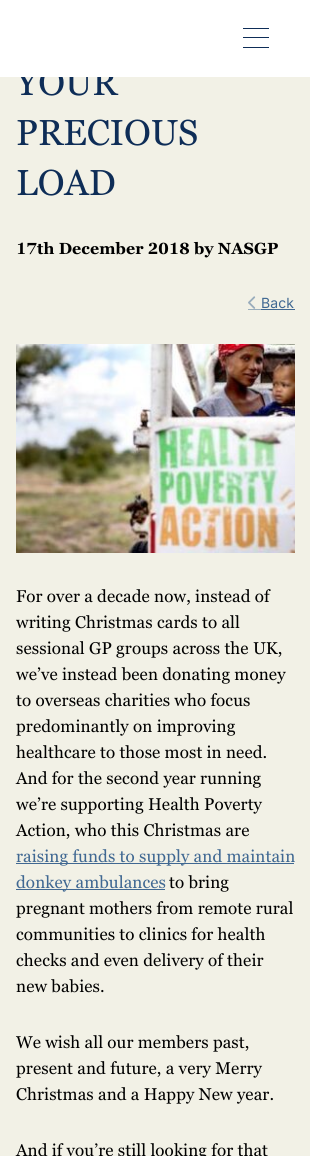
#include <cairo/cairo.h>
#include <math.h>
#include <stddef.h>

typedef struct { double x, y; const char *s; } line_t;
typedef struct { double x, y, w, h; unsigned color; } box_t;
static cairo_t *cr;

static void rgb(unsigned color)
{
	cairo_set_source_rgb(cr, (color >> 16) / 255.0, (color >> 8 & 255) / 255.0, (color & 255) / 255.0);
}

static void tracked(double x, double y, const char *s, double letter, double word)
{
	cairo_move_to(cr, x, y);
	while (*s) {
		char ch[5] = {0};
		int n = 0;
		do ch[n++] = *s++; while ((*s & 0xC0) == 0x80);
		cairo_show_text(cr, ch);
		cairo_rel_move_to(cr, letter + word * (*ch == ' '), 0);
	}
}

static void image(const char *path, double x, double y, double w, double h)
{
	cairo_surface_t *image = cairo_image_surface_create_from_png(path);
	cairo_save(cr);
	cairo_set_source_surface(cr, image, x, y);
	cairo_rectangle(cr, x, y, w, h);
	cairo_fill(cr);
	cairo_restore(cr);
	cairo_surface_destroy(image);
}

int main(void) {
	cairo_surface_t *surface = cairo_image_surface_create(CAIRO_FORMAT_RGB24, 310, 1156);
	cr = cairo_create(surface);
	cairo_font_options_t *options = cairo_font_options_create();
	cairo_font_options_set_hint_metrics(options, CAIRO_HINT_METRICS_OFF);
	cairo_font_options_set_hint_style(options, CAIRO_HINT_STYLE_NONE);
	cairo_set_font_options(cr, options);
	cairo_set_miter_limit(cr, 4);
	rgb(0xf2f1e6);
	cairo_paint(cr);
	image("img/1.png", 248, 296, 8, 13);
	rgb(0x406892);
	cairo_rectangle(cr, 261, 309, 34, 1);
	cairo_fill(cr);
	rgb(0x99adbc);
	cairo_rectangle(cr, 248, 309, 13, 1);
	cairo_fill(cr);
	image("img/2.png", 16, 344, 279, 209);
	rgb(0x406892);
	cairo_rectangle(cr, 16, 863, 278, 1);
	cairo_fill(cr);
	cairo_rectangle(cr, 16, 889, 149, 1);
	cairo_fill(cr);
	cairo_select_font_face(cr, "Georgia", CAIRO_FONT_SLANT_NORMAL, CAIRO_FONT_WEIGHT_NORMAL);
	cairo_set_font_size(cr, 36);
	rgb(0x0e2d57);
	cairo_move_to(cr, 16, 95);
	cairo_show_text(cr, "YOUR");
	{
		static const box_t items[] = {
			{0, 0, 310, 77, 0xffffff},
			{243, 47, 26, 1, 0x0e2d57},
			{243, 37, 26, 1, 0x0e2d57},
			{243, 28, 26, 1, 0x0e2d57},
		};
		for (size_t i = 0; i < sizeof items / sizeof *items; i++) {
			rgb(items[i].color);
			cairo_rectangle(cr, items[i].x, items[i].y, items[i].w, items[i].h);
			cairo_fill(cr);
		}
	}
	cairo_move_to(cr, 16, 145);
	cairo_show_text(cr, "PRECIOUS");
	cairo_move_to(cr, 16, 195);
	cairo_show_text(cr, "LOAD");
	cairo_select_font_face(cr, "Georgia", CAIRO_FONT_SLANT_NORMAL, CAIRO_FONT_WEIGHT_BOLD);
	cairo_set_font_size(cr, 16);
	rgb(0x000000);
	tracked(16, 254, "17th December 2018 by NASGP", 0.1, 0);
	cairo_select_font_face(cr, "Inter", CAIRO_FONT_SLANT_NORMAL, CAIRO_FONT_WEIGHT_NORMAL);
	cairo_set_font_size(cr, 14);
	rgb(0x406892);
	tracked(261, 308, "Back", 0.1, 0);
	cairo_select_font_face(cr, "Georgia", CAIRO_FONT_SLANT_NORMAL, CAIRO_FONT_WEIGHT_NORMAL);
	cairo_set_font_size(cr, 17);
	rgb(0x000000);
	{
		static const line_t items[] = {
			{16, 602, "For over a decade now, instead of"},
			{16, 628, "writing Christmas cards to all"},
			{16, 654, "sessional GP groups across the UK,"},
			{16, 680, "we’ve instead been donating money"},
			{16, 706, "to overseas charities who focus"},
			{16, 732, "predominantly on improving"},
			{16, 758, "healthcare to those most in need."},
			{16, 784, "And for the second year running"},
			{16, 810, "we’re supporting Health Poverty"},
			{16, 836, "Action, who this Christmas are"},
		};
		for (size_t i = 0; i < sizeof items / sizeof *items; i++) {
			tracked(items[i].x, items[i].y, items[i].s, 0.1, 0);
		}
	}
	rgb(0x406892);
	tracked(16, 862, "raising funds to supply and maintain", 0.1, 0);
	tracked(16, 888, "donkey ambulances", 0.1, 0);
	rgb(0x000000);
	{
		static const line_t items[] = {
			{169, 888, "to bring"},
			{16, 914, "pregnant mothers from remote rural"},
			{16, 940, "communities to clinics for health"},
			{16, 966, "checks and even delivery of their"},
			{16, 992, "new babies."},
			{16, 1048, "We wish all our members past,"},
			{16, 1074, "present and future, a very Merry"},
			{16, 1100, "Christmas and a Happy New year."},
			{16, 1156, "And if you’re still looking for that"},
		};
		for (size_t i = 0; i < sizeof items / sizeof *items; i++) {
			tracked(items[i].x, items[i].y, items[i].s, 0.1, 0);
		}
	}
	cairo_surface_write_to_png(surface, "page.png");
	cairo_font_options_destroy(options);
	cairo_destroy(cr);
	cairo_surface_destroy(surface);
	return 0;
}
